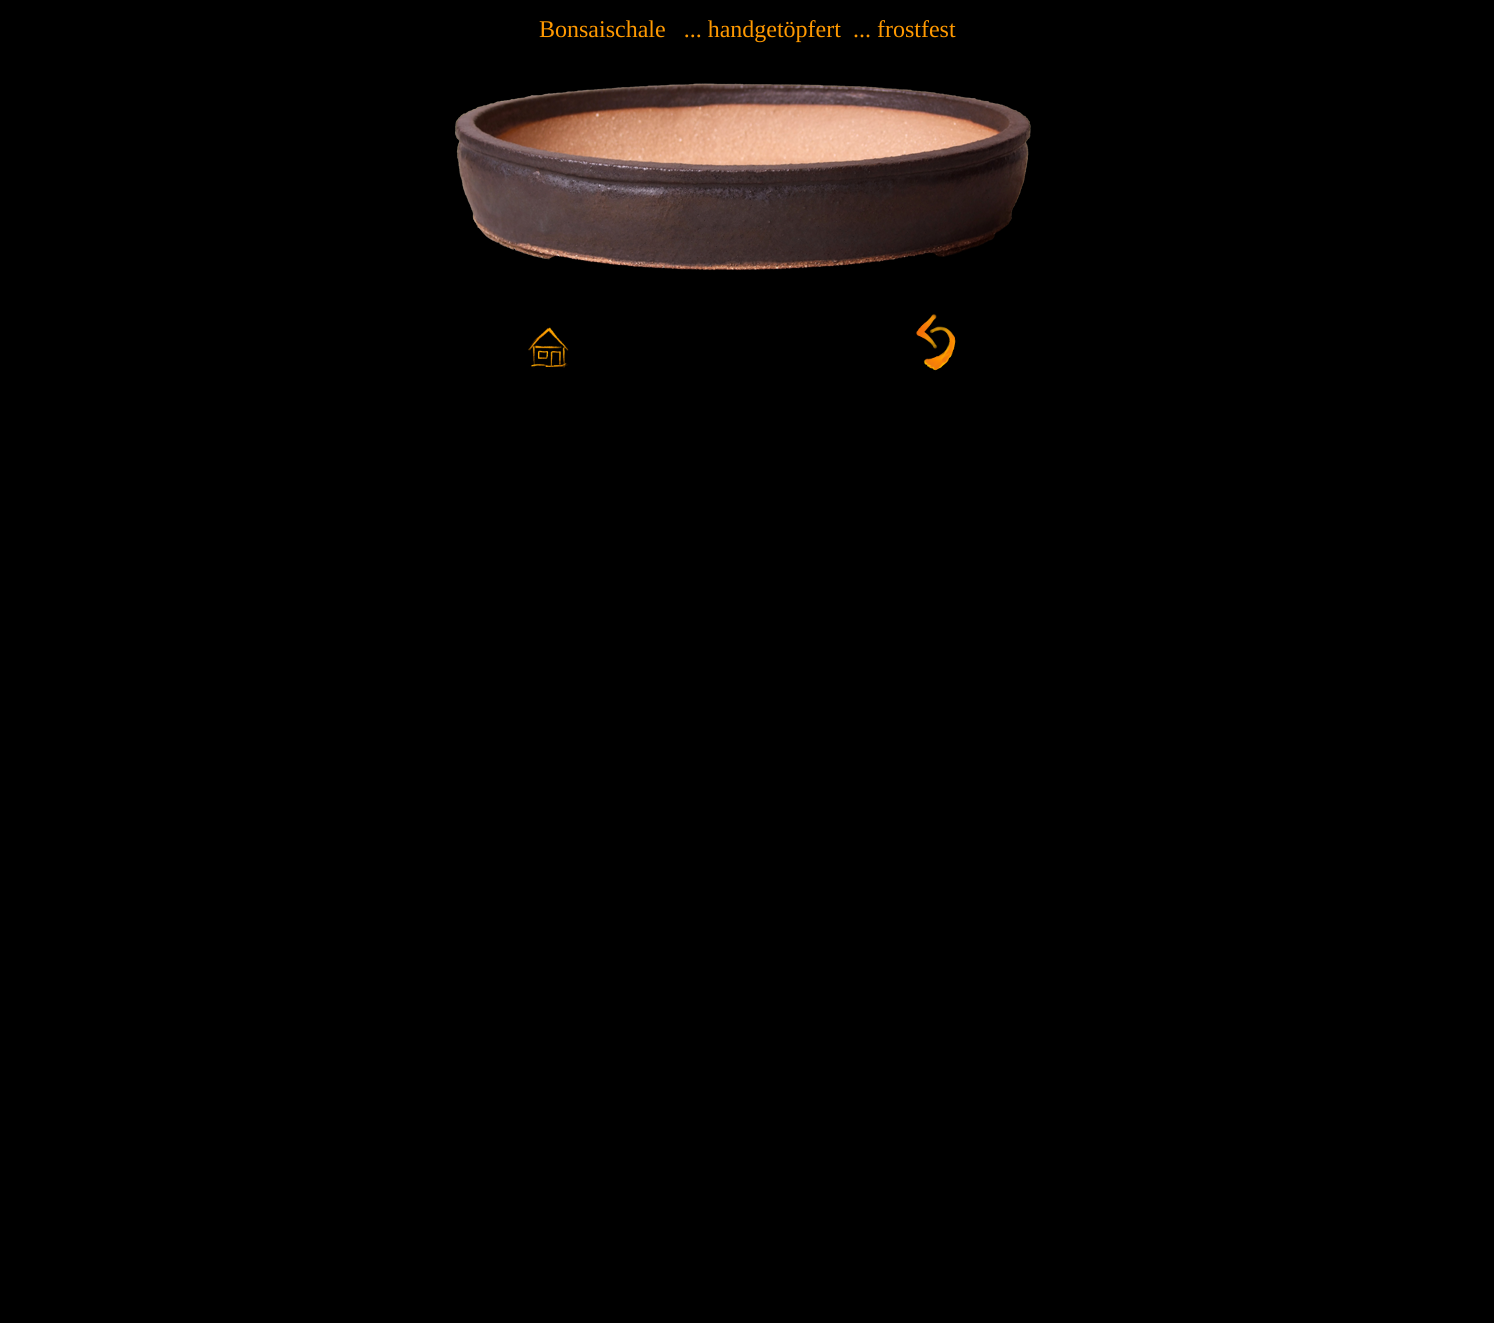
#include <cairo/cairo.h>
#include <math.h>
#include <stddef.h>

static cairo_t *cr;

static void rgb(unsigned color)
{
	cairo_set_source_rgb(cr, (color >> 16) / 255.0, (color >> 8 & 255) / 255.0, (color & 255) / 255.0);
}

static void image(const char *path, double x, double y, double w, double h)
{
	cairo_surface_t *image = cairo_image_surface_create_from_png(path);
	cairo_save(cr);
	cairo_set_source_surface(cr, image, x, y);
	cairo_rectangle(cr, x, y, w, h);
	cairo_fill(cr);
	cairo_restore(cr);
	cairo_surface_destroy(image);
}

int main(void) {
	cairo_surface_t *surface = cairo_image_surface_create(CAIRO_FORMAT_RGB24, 1494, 1323);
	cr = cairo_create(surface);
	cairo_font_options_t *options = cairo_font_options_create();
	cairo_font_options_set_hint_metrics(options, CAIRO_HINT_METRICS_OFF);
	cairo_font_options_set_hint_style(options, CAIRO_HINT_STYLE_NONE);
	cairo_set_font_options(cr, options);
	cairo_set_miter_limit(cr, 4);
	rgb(0x000000);
	cairo_paint(cr);
	image("img/1.png", 455, 83, 576, 188);
	image("img/2.png", 528, 327, 41, 41);
	image("img/3.png", 916, 314, 40, 57);
	cairo_select_font_face(cr, "Liberation Serif", CAIRO_FONT_SLANT_NORMAL, CAIRO_FONT_WEIGHT_NORMAL);
	cairo_set_font_size(cr, 24);
	rgb(0xff9900);
	cairo_move_to(cr, 539, 37);
	cairo_show_text(cr, "Bonsaischale   ... handgetöpfert  ... frostfest");
	cairo_surface_write_to_png(surface, "page.png");
	cairo_font_options_destroy(options);
	cairo_destroy(cr);
	cairo_surface_destroy(surface);
	return 0;
}
